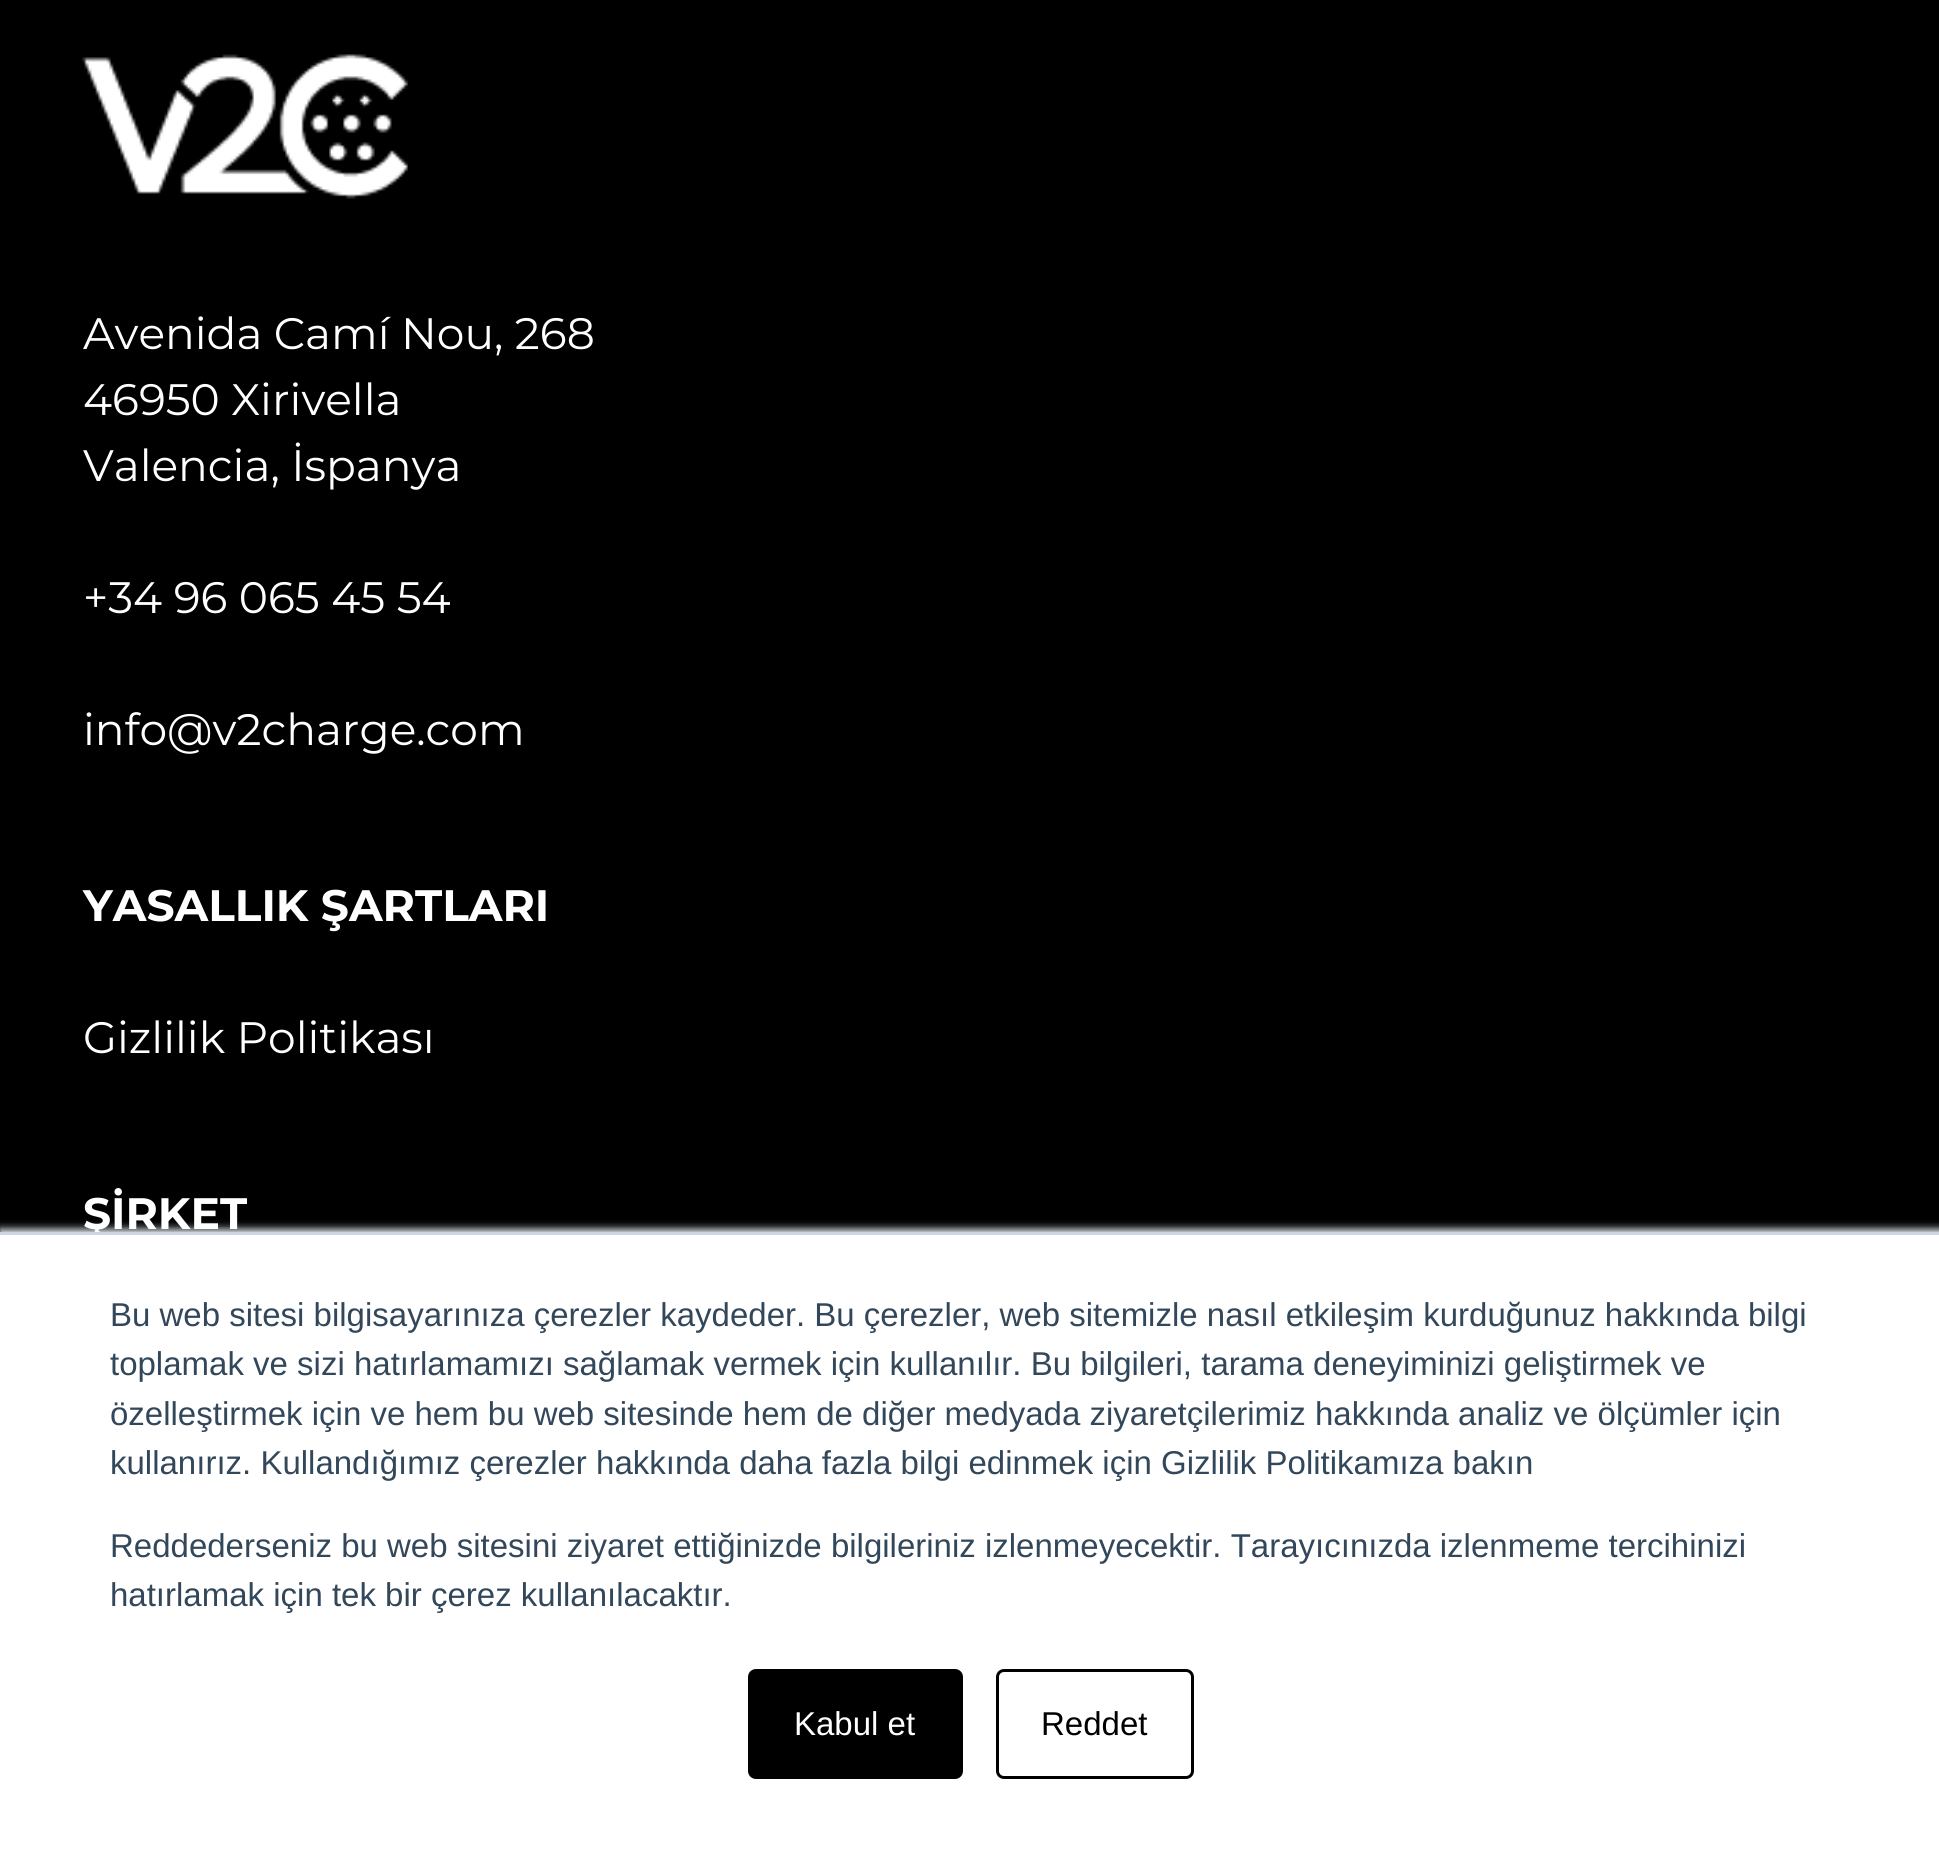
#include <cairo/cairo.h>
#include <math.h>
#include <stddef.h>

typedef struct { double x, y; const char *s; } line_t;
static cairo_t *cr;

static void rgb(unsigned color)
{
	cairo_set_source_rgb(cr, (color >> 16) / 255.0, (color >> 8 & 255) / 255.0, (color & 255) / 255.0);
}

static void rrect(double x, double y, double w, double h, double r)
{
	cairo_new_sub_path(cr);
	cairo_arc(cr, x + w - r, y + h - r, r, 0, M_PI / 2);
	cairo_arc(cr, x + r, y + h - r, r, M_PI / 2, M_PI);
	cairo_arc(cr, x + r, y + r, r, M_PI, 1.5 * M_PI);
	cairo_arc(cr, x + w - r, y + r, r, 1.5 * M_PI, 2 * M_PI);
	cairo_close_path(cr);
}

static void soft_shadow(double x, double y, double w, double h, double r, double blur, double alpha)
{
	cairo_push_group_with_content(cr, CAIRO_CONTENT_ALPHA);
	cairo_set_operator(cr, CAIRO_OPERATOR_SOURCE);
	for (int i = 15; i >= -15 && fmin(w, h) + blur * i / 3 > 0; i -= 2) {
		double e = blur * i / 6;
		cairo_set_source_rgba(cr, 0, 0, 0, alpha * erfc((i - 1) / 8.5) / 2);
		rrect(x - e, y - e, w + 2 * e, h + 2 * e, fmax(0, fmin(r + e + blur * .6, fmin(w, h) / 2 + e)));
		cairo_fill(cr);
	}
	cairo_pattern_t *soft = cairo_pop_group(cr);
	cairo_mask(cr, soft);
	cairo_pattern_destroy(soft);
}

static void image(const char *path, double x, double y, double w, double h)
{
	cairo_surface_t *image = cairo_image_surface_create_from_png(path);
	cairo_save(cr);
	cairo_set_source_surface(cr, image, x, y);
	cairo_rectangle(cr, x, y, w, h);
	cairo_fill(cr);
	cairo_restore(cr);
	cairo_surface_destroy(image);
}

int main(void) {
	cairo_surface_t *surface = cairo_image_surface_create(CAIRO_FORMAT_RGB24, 1939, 1849);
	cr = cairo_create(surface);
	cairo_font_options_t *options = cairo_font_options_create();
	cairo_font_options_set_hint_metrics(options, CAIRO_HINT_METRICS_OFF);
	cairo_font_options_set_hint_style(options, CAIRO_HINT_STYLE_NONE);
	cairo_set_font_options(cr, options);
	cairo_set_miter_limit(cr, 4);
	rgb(0x000000);
	cairo_paint(cr);
	image("img/1.png", 82, 54, 326, 145);
	rgb(0xeaf0f6);
	soft_shadow(0, 1229, 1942, 619, 0, 4, 1);
	rgb(0xffffff);
	cairo_rectangle(cr, 0, 1235, 1939, 614);
	cairo_fill(cr);
	rgb(0x000000);
	rrect(749.5, 1670.5, 212, 107, 6.5);
	cairo_fill_preserve(cr);
	cairo_set_line_width(cr, 3);
	cairo_stroke(cr);
	rrect(997.5, 1670.5, 195, 107, 6.5);
	cairo_stroke(cr);
	cairo_select_font_face(cr, "Montserrat", CAIRO_FONT_SLANT_NORMAL, CAIRO_FONT_WEIGHT_NORMAL);
	cairo_set_font_size(cr, 44);
	rgb(0xffffff);
	{
		static const line_t items[] = {
			{83, 349, "Avenida Camí Nou, 268"},
			{83, 415, "46950 Xirivella"},
			{83, 481, "Valencia, İspanya"},
			{83, 613, "+34 96 065 45 54"},
			{83, 745, "info@v2charge.com"},
		};
		for (size_t i = 0; i < sizeof items / sizeof *items; i++) {
			cairo_move_to(cr, items[i].x, items[i].y);
			cairo_show_text(cr, items[i].s);
		}
	}
	cairo_select_font_face(cr, "Montserrat", CAIRO_FONT_SLANT_NORMAL, CAIRO_FONT_WEIGHT_BOLD);
	cairo_move_to(cr, 83, 921);
	cairo_show_text(cr, "YASALLIK ŞARTLARI");
	cairo_select_font_face(cr, "Montserrat", CAIRO_FONT_SLANT_NORMAL, CAIRO_FONT_WEIGHT_NORMAL);
	cairo_move_to(cr, 83, 1053);
	cairo_show_text(cr, "Gizlilik Politikası");
	cairo_select_font_face(cr, "Montserrat", CAIRO_FONT_SLANT_NORMAL, CAIRO_FONT_WEIGHT_BOLD);
	cairo_move_to(cr, 83, 1229);
	cairo_show_text(cr, "ŞİRKET");
	rgb(0xcbd6e2);
	cairo_rectangle(cr, 0, 1232, 1939, 3);
	cairo_fill(cr);
	cairo_select_font_face(cr, "Liberation Sans", CAIRO_FONT_SLANT_NORMAL, CAIRO_FONT_WEIGHT_NORMAL);
	cairo_set_font_size(cr, 33);
	rgb(0x33475b);
	{
		static const line_t items[] = {
			{110, 1326, "Bu web sitesi bilgisayarınıza çerezler kaydeder. Bu çerezler, web sitemizle nasıl etkileşim kurduğunuz hakkında bilgi"},
			{110, 1375, "toplamak ve sizi hatırlamamızı sağlamak vermek için kullanılır. Bu bilgileri, tarama deneyiminizi geliştirmek ve"},
			{110, 1425, "özelleştirmek için ve hem bu web sitesinde hem de diğer medyada ziyaretçilerimiz hakkında analiz ve ölçümler için"},
			{110, 1474, "kullanırız. Kullandığımız çerezler hakkında daha fazla bilgi edinmek için Gizlilik Politikamıza bakın"},
			{110, 1557, "Reddederseniz bu web sitesini ziyaret ettiğinizde bilgileriniz izlenmeyecektir. Tarayıcınızda izlenmeme tercihinizi"},
			{110, 1606, "hatırlamak için tek bir çerez kullanılacaktır."},
		};
		for (size_t i = 0; i < sizeof items / sizeof *items; i++) {
			cairo_move_to(cr, items[i].x, items[i].y);
			cairo_show_text(cr, items[i].s);
		}
	}
	rgb(0xffffff);
	cairo_move_to(cr, 794, 1735);
	cairo_show_text(cr, "Kabul et");
	rgb(0x000000);
	cairo_move_to(cr, 1041, 1735);
	cairo_show_text(cr, "Reddet");
	cairo_surface_write_to_png(surface, "page.png");
	cairo_font_options_destroy(options);
	cairo_destroy(cr);
	cairo_surface_destroy(surface);
	return 0;
}
